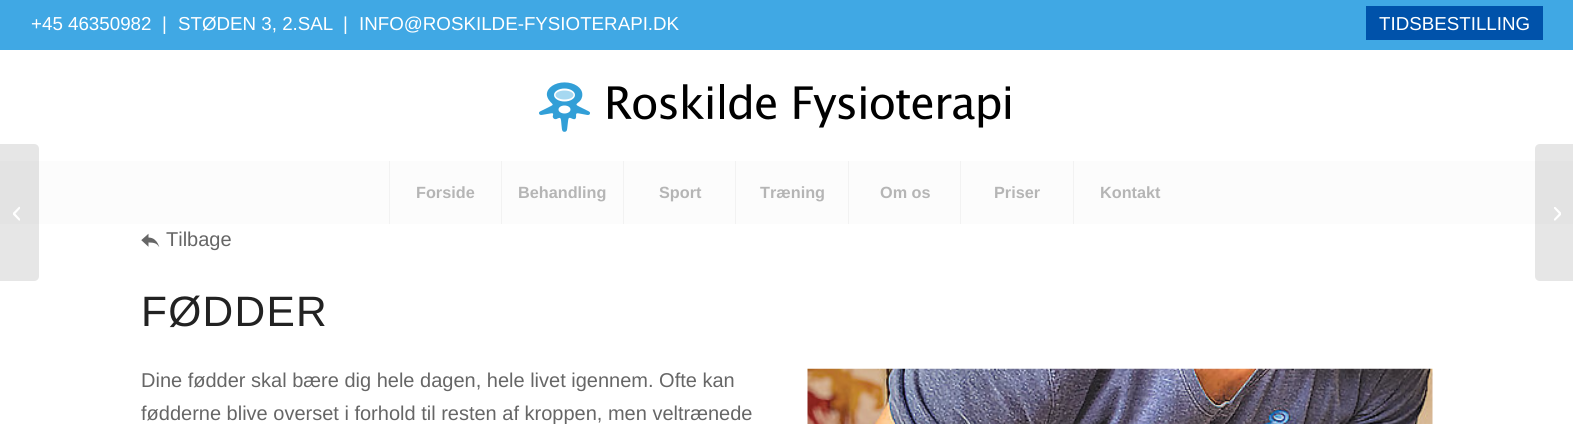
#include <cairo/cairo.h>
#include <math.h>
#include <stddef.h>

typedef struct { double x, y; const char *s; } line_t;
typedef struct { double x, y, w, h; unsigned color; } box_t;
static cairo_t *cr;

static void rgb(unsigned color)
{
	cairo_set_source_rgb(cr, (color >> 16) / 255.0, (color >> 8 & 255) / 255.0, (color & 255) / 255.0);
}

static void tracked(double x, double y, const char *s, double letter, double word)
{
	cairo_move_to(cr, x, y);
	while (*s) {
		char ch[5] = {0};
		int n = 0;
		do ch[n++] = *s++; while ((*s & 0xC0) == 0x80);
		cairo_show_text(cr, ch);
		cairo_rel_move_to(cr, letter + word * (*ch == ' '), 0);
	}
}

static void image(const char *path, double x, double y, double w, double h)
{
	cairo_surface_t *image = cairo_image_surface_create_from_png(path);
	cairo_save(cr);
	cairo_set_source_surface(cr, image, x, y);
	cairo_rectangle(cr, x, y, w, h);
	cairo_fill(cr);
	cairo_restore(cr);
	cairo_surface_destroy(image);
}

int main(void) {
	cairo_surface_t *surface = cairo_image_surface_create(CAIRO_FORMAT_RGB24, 1573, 424);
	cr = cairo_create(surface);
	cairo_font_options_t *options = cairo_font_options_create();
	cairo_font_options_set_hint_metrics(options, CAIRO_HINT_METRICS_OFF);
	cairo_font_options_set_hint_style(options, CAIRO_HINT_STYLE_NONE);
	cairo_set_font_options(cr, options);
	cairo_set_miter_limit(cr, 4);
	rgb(0xffffff);
	cairo_paint(cr);
	rgb(0xfcfcfc);
	cairo_rectangle(cr, 0, 161, 1573, 63);
	cairo_fill(cr);
	cairo_set_source_rgba(cr, 0, 0, 0, 0.1);
	cairo_new_path(cr);
	cairo_move_to(cr, 0, 144);
	cairo_line_to(cr, 34, 144);
	cairo_curve_to(cr, 37, 144, 39, 146, 39, 149);
	cairo_line_to(cr, 39, 276);
	cairo_curve_to(cr, 39, 279, 37, 281, 34, 281);
	cairo_line_to(cr, 0, 281);
	cairo_close_path(cr);
	cairo_fill(cr);
	image("img/1.png", 13, 206, 7, 15);
	rgb(0x40a8e4);
	cairo_rectangle(cr, 0, 0, 1573, 50);
	cairo_fill(cr);
	rgb(0x0052aa);
	cairo_rectangle(cr, 1366, 6, 177, 34);
	cairo_fill(cr);
	image("img/2.png", 539, 82, 471, 50);
	{
		static const box_t items[] = {
			{389, 161, 1, 63, 0xf2f2f2},
			{501, 161, 1, 63, 0xf2f2f2},
			{623, 161, 1, 63, 0xf2f2f2},
			{735, 161, 1, 63, 0xf2f2f2},
			{848, 161, 1, 63, 0xf2f2f2},
			{960, 161, 1, 63, 0xf2f2f2},
			{1073, 161, 1, 63, 0xf2f2f2},
		};
		for (size_t i = 0; i < sizeof items / sizeof *items; i++) {
			rgb(items[i].color);
			cairo_rectangle(cr, items[i].x, items[i].y, items[i].w, items[i].h);
			cairo_fill(cr);
		}
	}
	cairo_set_source_rgba(cr, 0, 0, 0, 0.1);
	cairo_new_path(cr);
	cairo_move_to(cr, 1540, 144);
	cairo_line_to(cr, 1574, 144);
	cairo_line_to(cr, 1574, 281);
	cairo_line_to(cr, 1540, 281);
	cairo_curve_to(cr, 1537, 281, 1535, 279, 1535, 276);
	cairo_line_to(cr, 1535, 149);
	cairo_curve_to(cr, 1535, 146, 1537, 144, 1540, 144);
	cairo_close_path(cr);
	cairo_fill(cr);
	image("img/3.png", 1554, 207, 7, 14);
	image("img/4.png", 141, 233, 19, 14);
	image("img/5.png", 807, 368, 626, 56);
	cairo_select_font_face(cr, "Liberation Sans", CAIRO_FONT_SLANT_NORMAL, CAIRO_FONT_WEIGHT_NORMAL);
	cairo_set_font_size(cr, 18.75);
	rgb(0xffffff);
	{
		static const line_t items[] = {
			{31, 30, "+45 46350982"},
			{162, 30, "|"},
			{178, 30, "STØDEN 3, 2.SAL"},
			{343, 30, "|"},
			{359, 30, "INFO@ROSKILDE-FYSIOTERAPI.DK"},
			{1379, 30, "TIDSBESTILLING"},
		};
		for (size_t i = 0; i < sizeof items / sizeof *items; i++) {
			cairo_move_to(cr, items[i].x, items[i].y);
			cairo_show_text(cr, items[i].s);
		}
	}
	cairo_select_font_face(cr, "Liberation Sans", CAIRO_FONT_SLANT_NORMAL, CAIRO_FONT_WEIGHT_BOLD);
	cairo_set_font_size(cr, 16.25);
	rgb(0xb5b5b5);
	{
		static const line_t items[] = {
			{416, 198, "Forside"},
			{518, 198, "Behandling"},
			{659, 198, "Sport"},
			{760, 198, "Træning"},
			{880, 198, "Om os"},
			{994, 198, "Priser"},
			{1100, 198, "Kontakt"},
		};
		for (size_t i = 0; i < sizeof items / sizeof *items; i++) {
			cairo_move_to(cr, items[i].x, items[i].y);
			cairo_show_text(cr, items[i].s);
		}
	}
	cairo_select_font_face(cr, "Liberation Sans", CAIRO_FONT_SLANT_NORMAL, CAIRO_FONT_WEIGHT_NORMAL);
	cairo_set_font_size(cr, 20);
	rgb(0x666666);
	cairo_move_to(cr, 166, 246);
	cairo_show_text(cr, "Tilbage");
	cairo_set_font_size(cr, 42.5);
	rgb(0x222222);
	tracked(141, 326, "FØDDER", 1.25, 0);
	cairo_set_font_size(cr, 20);
	rgb(0x666666);
	cairo_move_to(cr, 141, 387);
	cairo_show_text(cr, "Dine fødder skal bære dig hele dagen, hele livet igennem. Ofte kan");
	cairo_move_to(cr, 141, 420);
	cairo_show_text(cr, "fødderne blive overset i forhold til resten af kroppen, men veltrænede");
	cairo_surface_write_to_png(surface, "page.png");
	cairo_font_options_destroy(options);
	cairo_destroy(cr);
	cairo_surface_destroy(surface);
	return 0;
}
